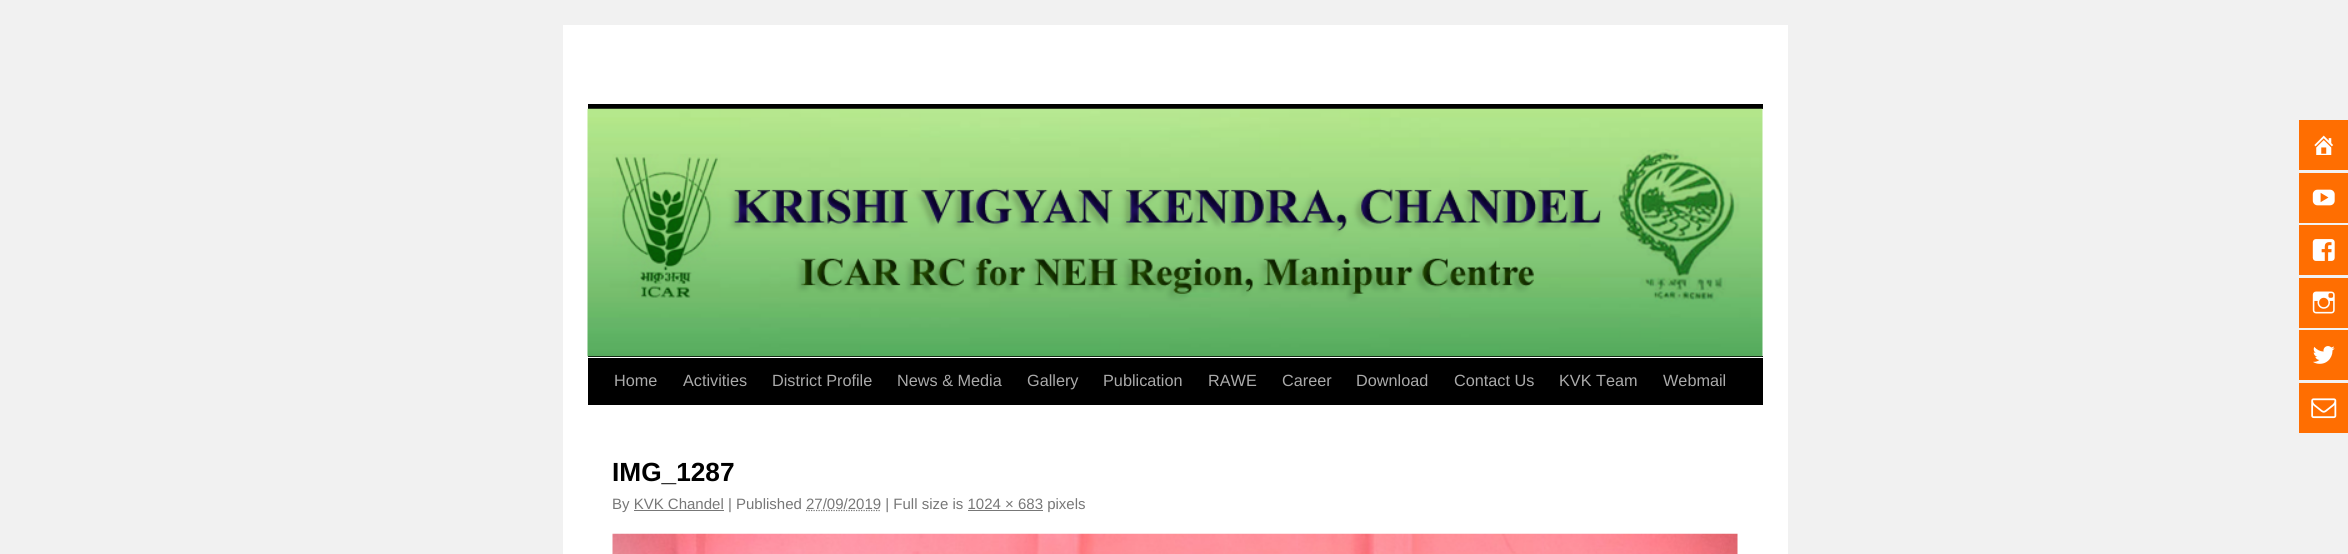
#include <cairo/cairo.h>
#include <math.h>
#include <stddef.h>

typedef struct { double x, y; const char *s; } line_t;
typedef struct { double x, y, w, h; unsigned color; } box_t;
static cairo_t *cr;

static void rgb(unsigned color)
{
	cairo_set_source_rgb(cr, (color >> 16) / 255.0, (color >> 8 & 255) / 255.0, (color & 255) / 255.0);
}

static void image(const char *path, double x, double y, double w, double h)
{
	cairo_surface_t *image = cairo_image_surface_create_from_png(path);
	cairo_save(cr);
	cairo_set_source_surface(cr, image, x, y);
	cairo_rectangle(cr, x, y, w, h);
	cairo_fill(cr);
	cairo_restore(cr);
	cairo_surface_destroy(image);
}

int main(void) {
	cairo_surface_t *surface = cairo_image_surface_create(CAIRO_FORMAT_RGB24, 2348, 554);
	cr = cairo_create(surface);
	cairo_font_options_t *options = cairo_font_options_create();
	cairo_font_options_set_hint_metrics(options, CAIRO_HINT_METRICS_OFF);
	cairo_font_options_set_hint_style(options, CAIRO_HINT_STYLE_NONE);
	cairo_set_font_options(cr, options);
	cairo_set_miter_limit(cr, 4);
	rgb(0xf1f1f1);
	cairo_paint(cr);
	{
		static const box_t items[] = {
			{563, 25, 1225, 529, 0xffffff},
			{588, 104, 1175, 5, 0x000000},
			{588, 356, 1175, 1, 0x000000},
		};
		for (size_t i = 0; i < sizeof items / sizeof *items; i++) {
			rgb(items[i].color);
			cairo_rectangle(cr, items[i].x, items[i].y, items[i].w, items[i].h);
			cairo_fill(cr);
		}
	}
	image("img/1.png", 587, 108, 1176, 249);
	cairo_rectangle(cr, 588, 358, 1175, 47);
	cairo_fill(cr);
	cairo_new_path(cr);
	cairo_move_to(cr, 806, 510.5);
	cairo_line_to(cr, 881, 510.5);
	rgb(0x777777);
	cairo_set_line_width(cr, 1.2);
	cairo_set_dash(cr, (double[]){1.25, 1.25}, 2, 0);
	cairo_stroke(cr);
	cairo_rectangle(cr, 634, 510, 90, 1);
	cairo_fill(cr);
	cairo_rectangle(cr, 968, 510, 75, 1);
	cairo_fill(cr);
	image("img/2.png", 612, 533, 1126, 21);
	rgb(0xff6e01);
	cairo_rectangle(cr, 2299, 120, 49, 50);
	cairo_fill(cr);
	image("img/3.png", 2314, 135, 20, 20);
	cairo_rectangle(cr, 2299, 173, 49, 50);
	cairo_fill(cr);
	image("img/4.png", 2312, 189, 23, 17);
	cairo_rectangle(cr, 2299, 225, 49, 50);
	cairo_fill(cr);
	image("img/5.png", 2312, 239, 23, 22);
	cairo_rectangle(cr, 2299, 278, 49, 50);
	cairo_fill(cr);
	image("img/6.png", 2312, 291, 23, 23);
	cairo_rectangle(cr, 2299, 330, 49, 50);
	cairo_fill(cr);
	image("img/7.png", 2313, 346, 22, 18);
	cairo_rectangle(cr, 2299, 383, 49, 50);
	cairo_fill(cr);
	image("img/8.png", 2311, 398, 26, 21);
	cairo_select_font_face(cr, "Liberation Sans", CAIRO_FONT_SLANT_NORMAL, CAIRO_FONT_WEIGHT_NORMAL);
	cairo_set_font_size(cr, 16.25);
	rgb(0xaaaaaa);
	{
		static const line_t items[] = {
			{614, 386, "Home"},
			{683, 386, "Activities"},
			{772, 386, "District Profile"},
			{897, 386, "News & Media"},
			{1027, 386, "Gallery"},
			{1103, 386, "Publication"},
			{1208, 386, "RAWE"},
			{1282, 386, "Career"},
			{1356, 386, "Download"},
			{1454, 386, "Contact Us"},
			{1559, 386, "KVK Team"},
			{1663, 386, "Webmail"},
		};
		for (size_t i = 0; i < sizeof items / sizeof *items; i++) {
			cairo_move_to(cr, items[i].x, items[i].y);
			cairo_show_text(cr, items[i].s);
		}
	}
	cairo_select_font_face(cr, "Liberation Sans", CAIRO_FONT_SLANT_NORMAL, CAIRO_FONT_WEIGHT_BOLD);
	cairo_set_font_size(cr, 26.25);
	rgb(0x000000);
	cairo_move_to(cr, 612, 481);
	cairo_show_text(cr, "IMG_1287");
	cairo_select_font_face(cr, "Liberation Sans", CAIRO_FONT_SLANT_NORMAL, CAIRO_FONT_WEIGHT_NORMAL);
	cairo_set_font_size(cr, 15);
	rgb(0x777777);
	cairo_move_to(cr, 612, 509);
	cairo_show_text(cr, "By KVK Chandel | Published");
	cairo_move_to(cr, 806, 509);
	cairo_show_text(cr, "27/09/2019 | Full size is 1024 × 683 pixels");
	cairo_surface_write_to_png(surface, "page.png");
	cairo_font_options_destroy(options);
	cairo_destroy(cr);
	cairo_surface_destroy(surface);
	return 0;
}
